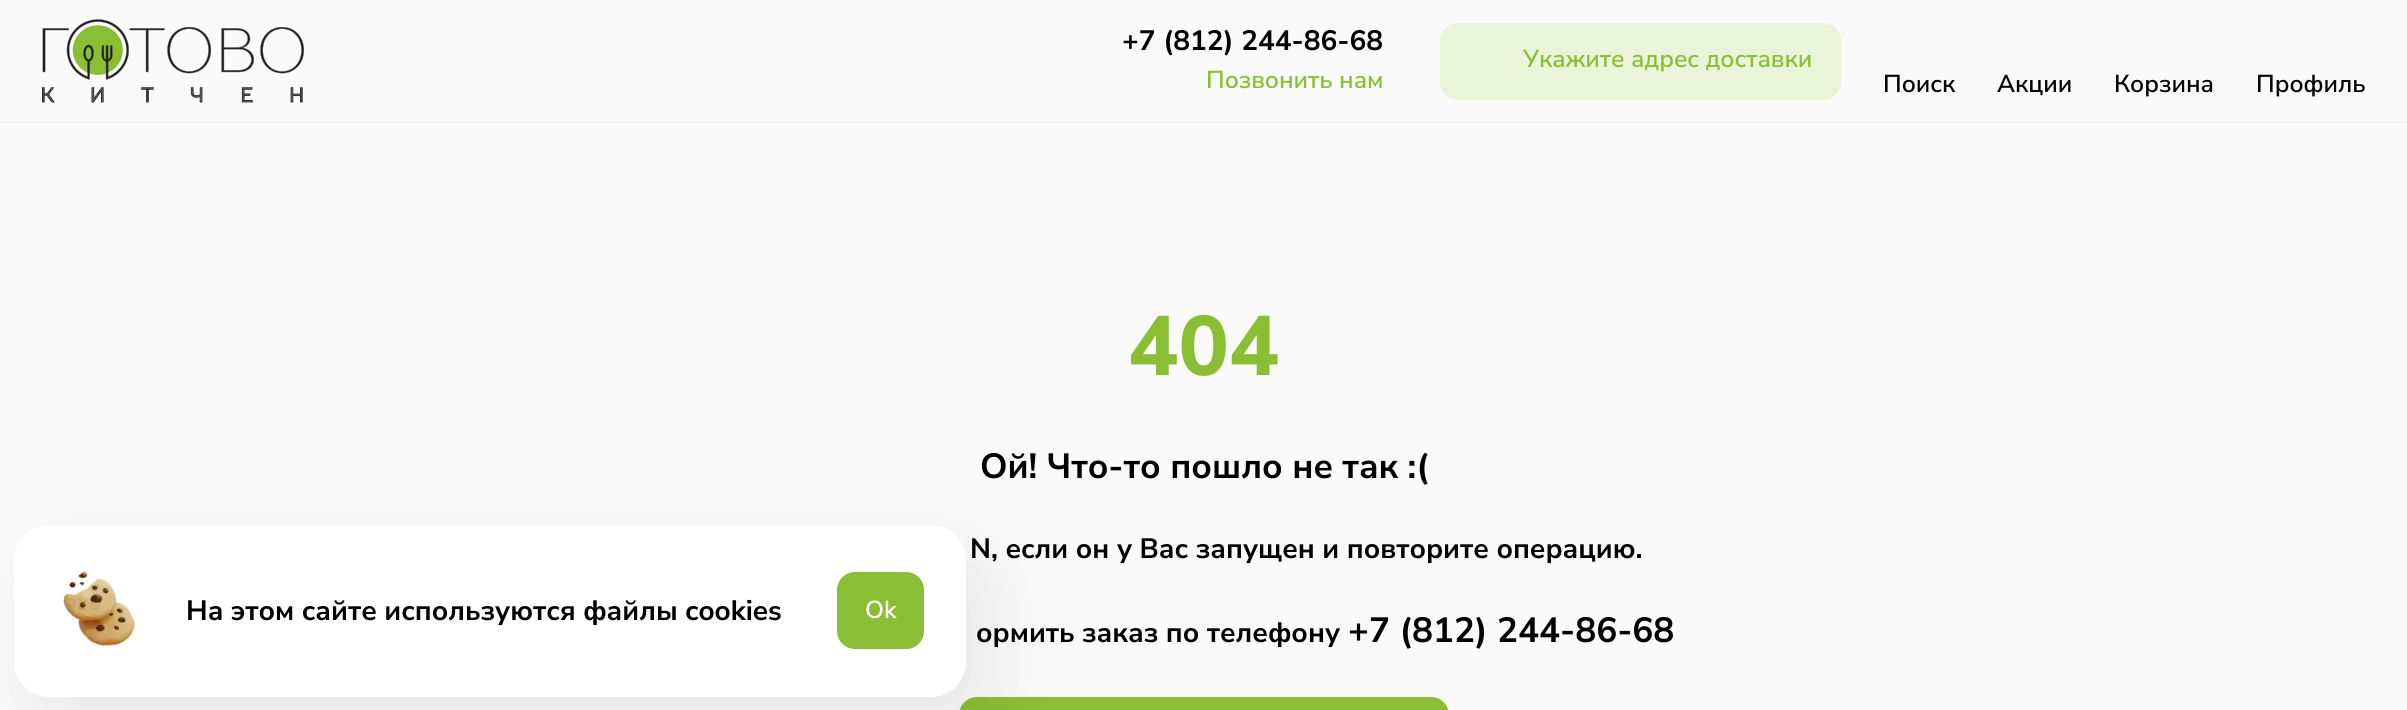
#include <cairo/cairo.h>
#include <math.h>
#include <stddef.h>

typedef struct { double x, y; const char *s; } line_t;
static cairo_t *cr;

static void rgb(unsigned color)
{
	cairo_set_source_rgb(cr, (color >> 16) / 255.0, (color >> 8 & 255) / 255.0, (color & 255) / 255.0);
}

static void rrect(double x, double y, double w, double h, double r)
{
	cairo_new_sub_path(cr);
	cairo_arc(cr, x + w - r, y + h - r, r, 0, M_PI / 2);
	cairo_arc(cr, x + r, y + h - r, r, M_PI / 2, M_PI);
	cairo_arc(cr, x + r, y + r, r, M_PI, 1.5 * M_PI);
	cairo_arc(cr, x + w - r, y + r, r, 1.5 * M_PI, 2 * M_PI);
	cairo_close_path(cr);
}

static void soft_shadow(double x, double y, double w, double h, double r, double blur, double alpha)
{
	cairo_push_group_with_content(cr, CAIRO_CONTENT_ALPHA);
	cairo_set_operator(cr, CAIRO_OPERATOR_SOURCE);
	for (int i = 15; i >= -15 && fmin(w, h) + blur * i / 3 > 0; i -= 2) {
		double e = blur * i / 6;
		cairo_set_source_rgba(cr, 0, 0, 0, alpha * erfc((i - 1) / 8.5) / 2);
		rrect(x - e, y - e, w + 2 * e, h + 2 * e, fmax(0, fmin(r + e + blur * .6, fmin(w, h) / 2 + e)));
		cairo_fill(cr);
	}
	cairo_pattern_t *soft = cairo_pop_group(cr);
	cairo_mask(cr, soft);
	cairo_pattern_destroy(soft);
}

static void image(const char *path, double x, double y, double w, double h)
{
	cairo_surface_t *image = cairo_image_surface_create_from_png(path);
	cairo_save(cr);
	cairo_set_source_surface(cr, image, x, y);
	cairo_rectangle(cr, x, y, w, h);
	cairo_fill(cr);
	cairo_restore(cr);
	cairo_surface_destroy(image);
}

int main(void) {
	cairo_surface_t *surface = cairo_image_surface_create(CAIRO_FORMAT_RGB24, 2407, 710);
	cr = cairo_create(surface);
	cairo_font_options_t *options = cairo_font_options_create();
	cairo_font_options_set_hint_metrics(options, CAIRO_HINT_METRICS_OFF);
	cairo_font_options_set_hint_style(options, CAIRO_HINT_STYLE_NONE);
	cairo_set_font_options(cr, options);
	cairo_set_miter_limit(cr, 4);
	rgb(0xfafafa);
	cairo_paint(cr);
	rgb(0xf4f4f4);
	cairo_rectangle(cr, 0, 121, 2407, 2);
	cairo_fill(cr);
	image("img/1.png", 42, 19, 262, 84);
	rgb(0xe9f4d8);
	rrect(1440, 23, 401, 77, 18);
	cairo_fill(cr);
	rgb(0x8abe35);
	rrect(959, 697, 490, 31, 18);
	cairo_fill(cr);
	rgb(0x000000);
	soft_shadow(37, 555, 952, 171, 35, 37, 0.08);
	rgb(0xffffff);
	rrect(14, 525, 952, 172, 35);
	cairo_fill(cr);
	image("img/2.png", 63, 571, 72, 75);
	rgb(0x8abe35);
	rrect(837, 572, 87, 77, 18);
	cairo_fill(cr);
	cairo_select_font_face(cr, "Nunito Sans", CAIRO_FONT_SLANT_NORMAL, CAIRO_FONT_WEIGHT_BOLD);
	cairo_set_font_size(cr, 28);
	rgb(0x000000);
	cairo_move_to(cr, 1122, 50);
	cairo_show_text(cr, "+7 (812) 244-86-68");
	cairo_select_font_face(cr, "Nunito Sans SemiBold", CAIRO_FONT_SLANT_NORMAL, CAIRO_FONT_WEIGHT_NORMAL);
	cairo_set_font_size(cr, 24.5);
	rgb(0x8abe35);
	cairo_move_to(cr, 1206, 88);
	cairo_show_text(cr, "Позвонить нам");
	cairo_move_to(cr, 1523, 67);
	cairo_show_text(cr, "Укажите адрес доставки");
	rgb(0x000000);
	{
		static const line_t items[] = {
			{1883, 92, "Поиск"},
			{1997, 92, "Акции"},
			{2114, 92, "Корзина"},
			{2256, 92, "Профиль"},
		};
		for (size_t i = 0; i < sizeof items / sizeof *items; i++) {
			cairo_move_to(cr, items[i].x, items[i].y);
			cairo_show_text(cr, items[i].s);
		}
	}
	cairo_select_font_face(cr, "Nunito Sans", CAIRO_FONT_SLANT_NORMAL, CAIRO_FONT_WEIGHT_BOLD);
	cairo_set_font_size(cr, 28);
	cairo_move_to(cr, 186, 620);
	cairo_show_text(cr, "На этом сайте используются файлы cookies");
	cairo_select_font_face(cr, "Nunito Sans SemiBold", CAIRO_FONT_SLANT_NORMAL, CAIRO_FONT_WEIGHT_NORMAL);
	cairo_set_font_size(cr, 24.5);
	rgb(0xffffff);
	cairo_move_to(cr, 865, 618);
	cairo_show_text(cr, "Оk");
	cairo_select_font_face(cr, "Nunito Sans ExtraBold", CAIRO_FONT_SLANT_NORMAL, CAIRO_FONT_WEIGHT_NORMAL);
	cairo_set_font_size(cr, 84);
	rgb(0x8abe35);
	cairo_move_to(cr, 1128, 375);
	cairo_show_text(cr, "404");
	cairo_select_font_face(cr, "Nunito Sans", CAIRO_FONT_SLANT_NORMAL, CAIRO_FONT_WEIGHT_BOLD);
	cairo_set_font_size(cr, 35);
	rgb(0x000000);
	cairo_move_to(cr, 980, 478);
	cairo_show_text(cr, "Ой! Что-то пошло не так :(");
	cairo_set_font_size(cr, 28);
	cairo_move_to(cr, 970, 558);
	cairo_show_text(cr, "N, если он у Вас запущен и повторите операцию.");
	cairo_move_to(cr, 976, 642);
	cairo_show_text(cr, "ормить заказ по телефону");
	cairo_set_font_size(cr, 35);
	cairo_move_to(cr, 1348, 642);
	cairo_show_text(cr, "+7 (812) 244-86-68");
	cairo_surface_write_to_png(surface, "page.png");
	cairo_font_options_destroy(options);
	cairo_destroy(cr);
	cairo_surface_destroy(surface);
	return 0;
}
